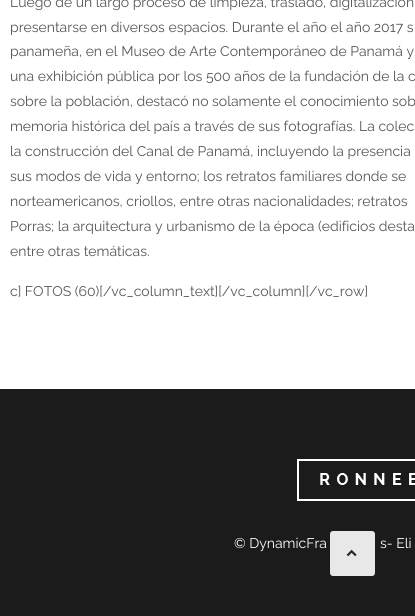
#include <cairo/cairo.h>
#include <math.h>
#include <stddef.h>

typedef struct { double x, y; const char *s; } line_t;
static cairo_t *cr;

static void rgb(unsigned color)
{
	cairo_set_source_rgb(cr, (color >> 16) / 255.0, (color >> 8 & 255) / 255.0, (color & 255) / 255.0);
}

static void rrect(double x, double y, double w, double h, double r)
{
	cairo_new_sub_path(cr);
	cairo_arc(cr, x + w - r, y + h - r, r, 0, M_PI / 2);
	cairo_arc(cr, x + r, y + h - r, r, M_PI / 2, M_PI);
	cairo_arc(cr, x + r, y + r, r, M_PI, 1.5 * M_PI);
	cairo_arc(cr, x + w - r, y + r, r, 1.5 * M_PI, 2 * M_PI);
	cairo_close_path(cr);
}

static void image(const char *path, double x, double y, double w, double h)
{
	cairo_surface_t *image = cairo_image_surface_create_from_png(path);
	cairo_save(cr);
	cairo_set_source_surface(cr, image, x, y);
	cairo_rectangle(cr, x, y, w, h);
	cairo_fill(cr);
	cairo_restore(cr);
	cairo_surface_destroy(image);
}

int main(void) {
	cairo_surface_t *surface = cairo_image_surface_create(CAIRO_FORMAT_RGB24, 415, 616);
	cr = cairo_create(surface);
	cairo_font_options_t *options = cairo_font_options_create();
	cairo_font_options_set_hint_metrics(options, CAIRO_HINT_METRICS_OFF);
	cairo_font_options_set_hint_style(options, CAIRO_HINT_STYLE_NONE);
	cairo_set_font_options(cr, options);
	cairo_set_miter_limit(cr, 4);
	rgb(0xffffff);
	cairo_paint(cr);
	rgb(0x1b1b1b);
	cairo_rectangle(cr, 0, 389, 415, 227);
	cairo_fill(cr);
	rgb(0xe8e8e8);
	rrect(330, 531, 45, 45, 3);
	cairo_fill(cr);
	image("img/1.png", 346, 549, 11, 8);
	image("img/2.png", 297, 459, 118, 42);
	cairo_select_font_face(cr, "Raleway", CAIRO_FONT_SLANT_NORMAL, CAIRO_FONT_WEIGHT_NORMAL);
	cairo_set_font_size(cr, 14);
	rgb(0x565656);
	{
		static const line_t items[] = {
			{10, 7, "Luego de un largo proceso de limpieza, traslado, digitalización"},
			{10, 32, "presentarse en diversos espacios. Durante el año el año 2017 s"},
			{10, 56, "panameña, en el Museo de Arte Contemporáneo de Panamá y"},
			{10, 81, "una exhibición pública por los 500 años de la fundación de la c"},
			{10, 106, "sobre la población, destacó no solamente el conocimiento sob"},
			{10, 131, "memoria histórica del país a través de sus fotografías. La colec"},
			{10, 156, "la construcción del Canal de Panamá, incluyendo la presencia"},
			{10, 181, "sus modos de vida y entorno; los retratos familiares donde se"},
			{10, 206, "norteamericanos, criollos, entre otras nacionalidades; retratos"},
			{10, 231, "Porras; la arquitectura y urbanismo de la época (edificios desta"},
			{10, 256, "entre otras temáticas."},
			{10, 296, "c] FOTOS (60)[/vc_column_text][/vc_column][/vc_row]"},
		};
		for (size_t i = 0; i < sizeof items / sizeof *items; i++) {
			cairo_move_to(cr, items[i].x, items[i].y);
			cairo_show_text(cr, items[i].s);
		}
	}
	rgb(0xffffff);
	cairo_move_to(cr, 234, 548);
	cairo_show_text(cr, "© DynamicFra");
	cairo_move_to(cr, 380, 548);
	cairo_show_text(cr, "s- Eli");
	cairo_surface_write_to_png(surface, "page.png");
	cairo_font_options_destroy(options);
	cairo_destroy(cr);
	cairo_surface_destroy(surface);
	return 0;
}
